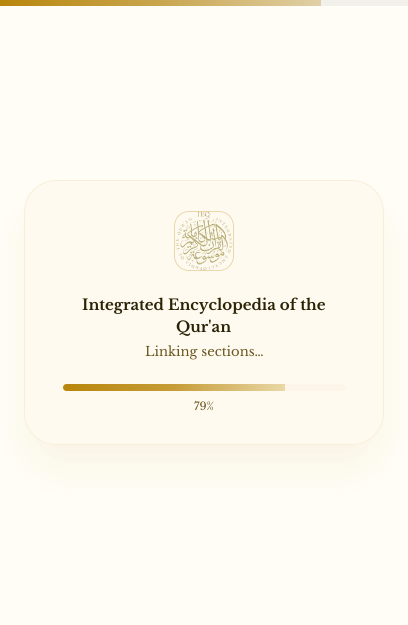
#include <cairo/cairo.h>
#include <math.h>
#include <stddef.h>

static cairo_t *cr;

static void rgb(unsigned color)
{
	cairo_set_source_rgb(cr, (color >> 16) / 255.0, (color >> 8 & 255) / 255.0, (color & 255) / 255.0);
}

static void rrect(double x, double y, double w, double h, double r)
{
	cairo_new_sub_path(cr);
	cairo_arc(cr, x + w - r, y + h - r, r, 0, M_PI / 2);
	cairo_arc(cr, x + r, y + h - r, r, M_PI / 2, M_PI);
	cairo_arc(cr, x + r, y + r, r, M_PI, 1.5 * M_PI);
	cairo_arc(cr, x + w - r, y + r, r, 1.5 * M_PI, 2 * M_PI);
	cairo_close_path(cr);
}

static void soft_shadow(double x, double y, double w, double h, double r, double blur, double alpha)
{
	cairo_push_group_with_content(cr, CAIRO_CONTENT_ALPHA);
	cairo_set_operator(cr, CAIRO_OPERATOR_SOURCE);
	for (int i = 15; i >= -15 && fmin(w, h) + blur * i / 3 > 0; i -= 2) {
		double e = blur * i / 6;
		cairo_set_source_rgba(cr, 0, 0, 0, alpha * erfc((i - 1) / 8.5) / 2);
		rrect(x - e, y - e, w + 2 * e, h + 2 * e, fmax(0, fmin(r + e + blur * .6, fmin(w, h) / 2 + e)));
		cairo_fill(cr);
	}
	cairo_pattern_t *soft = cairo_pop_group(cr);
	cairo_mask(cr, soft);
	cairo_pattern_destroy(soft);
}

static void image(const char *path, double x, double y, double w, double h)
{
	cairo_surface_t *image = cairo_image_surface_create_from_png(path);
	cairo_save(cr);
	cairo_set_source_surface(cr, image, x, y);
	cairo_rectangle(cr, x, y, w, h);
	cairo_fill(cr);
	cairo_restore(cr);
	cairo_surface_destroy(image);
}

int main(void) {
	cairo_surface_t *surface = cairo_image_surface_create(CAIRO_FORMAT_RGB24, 408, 625);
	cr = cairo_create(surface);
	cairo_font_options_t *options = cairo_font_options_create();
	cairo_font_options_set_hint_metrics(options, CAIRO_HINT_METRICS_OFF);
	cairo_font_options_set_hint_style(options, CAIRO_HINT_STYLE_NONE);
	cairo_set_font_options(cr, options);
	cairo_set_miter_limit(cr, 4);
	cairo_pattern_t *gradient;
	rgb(0xfffdf6);
	cairo_paint(cr);
	rgb(0xf2f0ea);
	cairo_rectangle(cr, 321, 0, 87, 6);
	cairo_fill(cr);
	gradient = cairo_pattern_create_linear(0, 3, 321, 3);
	cairo_pattern_add_color_stop_rgba(gradient, 0, 0.722, 0.525, 0.043, 1);
	cairo_pattern_add_color_stop_rgba(gradient, 0.5, 0.788, 0.651, 0.306, 1);
	cairo_pattern_add_color_stop_rgba(gradient, 1, 0.882, 0.816, 0.655, 1);
	cairo_set_source(cr, gradient);
	cairo_pattern_destroy(gradient);
	cairo_rectangle(cr, 0, 0, 321, 6);
	cairo_fill(cr);
	cairo_save(cr);
	cairo_set_fill_rule(cr, CAIRO_FILL_RULE_EVEN_ODD);
	cairo_new_path(cr);
	cairo_move_to(cr, 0, 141);
	cairo_line_to(cr, 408, 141);
	cairo_line_to(cr, 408, 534);
	cairo_line_to(cr, 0, 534);
	cairo_close_path(cr);
	cairo_move_to(cr, 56, 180);
	cairo_line_to(cr, 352, 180);
	cairo_curve_to(cr, 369.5, 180, 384, 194.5, 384, 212);
	cairo_line_to(cr, 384, 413);
	cairo_curve_to(cr, 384, 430.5, 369.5, 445, 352, 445);
	cairo_line_to(cr, 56, 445);
	cairo_curve_to(cr, 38.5, 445, 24, 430.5, 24, 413);
	cairo_line_to(cr, 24, 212);
	cairo_curve_to(cr, 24, 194.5, 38.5, 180, 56, 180);
	cairo_close_path(cr);
	cairo_clip(cr);
	rgb(0xb8860b);
	soft_shadow(36, 217, 336, 241, 20, 25, 0.1);
	cairo_restore(cr);
	cairo_set_source_rgba(cr, 1, 0.98, 0.941, 0.95);
	rrect(24, 180, 360, 265, 32);
	cairo_fill(cr);
	rrect(24.5, 180.5, 359, 264, 31.5);
	cairo_set_source_rgba(cr, 0.722, 0.525, 0.043, 0.1);
	cairo_set_line_width(cr, 1);
	cairo_stroke(cr);
	image("img/1.png", 175, 211, 58, 60);
	rrect(174.5, 211.5, 59, 59, 14.5);
	cairo_set_source_rgba(cr, 0.722, 0.525, 0.043, 0.3);
	cairo_stroke(cr);
	rgb(0xfcf5e8);
	rrect(63, 384, 283, 7, 3.5);
	cairo_fill(cr);
	gradient = cairo_pattern_create_linear(63, 388, 285, 388);
	cairo_pattern_add_color_stop_rgba(gradient, 0, 0.722, 0.525, 0.043, 1);
	cairo_pattern_add_color_stop_rgba(gradient, 0.5, 0.776, 0.612, 0.216, 1);
	cairo_pattern_add_color_stop_rgba(gradient, 1, 0.914, 0.847, 0.651, 1);
	cairo_set_source(cr, gradient);
	cairo_pattern_destroy(gradient);
	cairo_new_path(cr);
	cairo_move_to(cr, 66.5, 384);
	cairo_line_to(cr, 285, 384);
	cairo_line_to(cr, 285, 391);
	cairo_line_to(cr, 66.5, 391);
	cairo_curve_to(cr, 64.5, 391, 63, 389.5, 63, 387.5);
	cairo_curve_to(cr, 63, 385.5, 64.5, 384, 66.5, 384);
	cairo_close_path(cr);
	cairo_fill(cr);
	cairo_select_font_face(cr, "Libre Baskerville", CAIRO_FONT_SLANT_NORMAL, CAIRO_FONT_WEIGHT_BOLD);
	cairo_set_font_size(cr, 15);
	rgb(0x2b2305);
	cairo_move_to(cr, 82, 310);
	cairo_show_text(cr, "Integrated Encyclopedia of the");
	cairo_move_to(cr, 176, 332);
	cairo_show_text(cr, "Qur'an");
	cairo_select_font_face(cr, "Libre Baskerville", CAIRO_FONT_SLANT_NORMAL, CAIRO_FONT_WEIGHT_NORMAL);
	cairo_set_font_size(cr, 13.1);
	rgb(0x6a5720);
	cairo_move_to(cr, 145, 356);
	cairo_show_text(cr, "Linking sections…");
	cairo_set_font_size(cr, 11);
	cairo_move_to(cr, 194, 410);
	cairo_show_text(cr, "79%");
	cairo_surface_write_to_png(surface, "page.png");
	cairo_font_options_destroy(options);
	cairo_destroy(cr);
	cairo_surface_destroy(surface);
	return 0;
}
